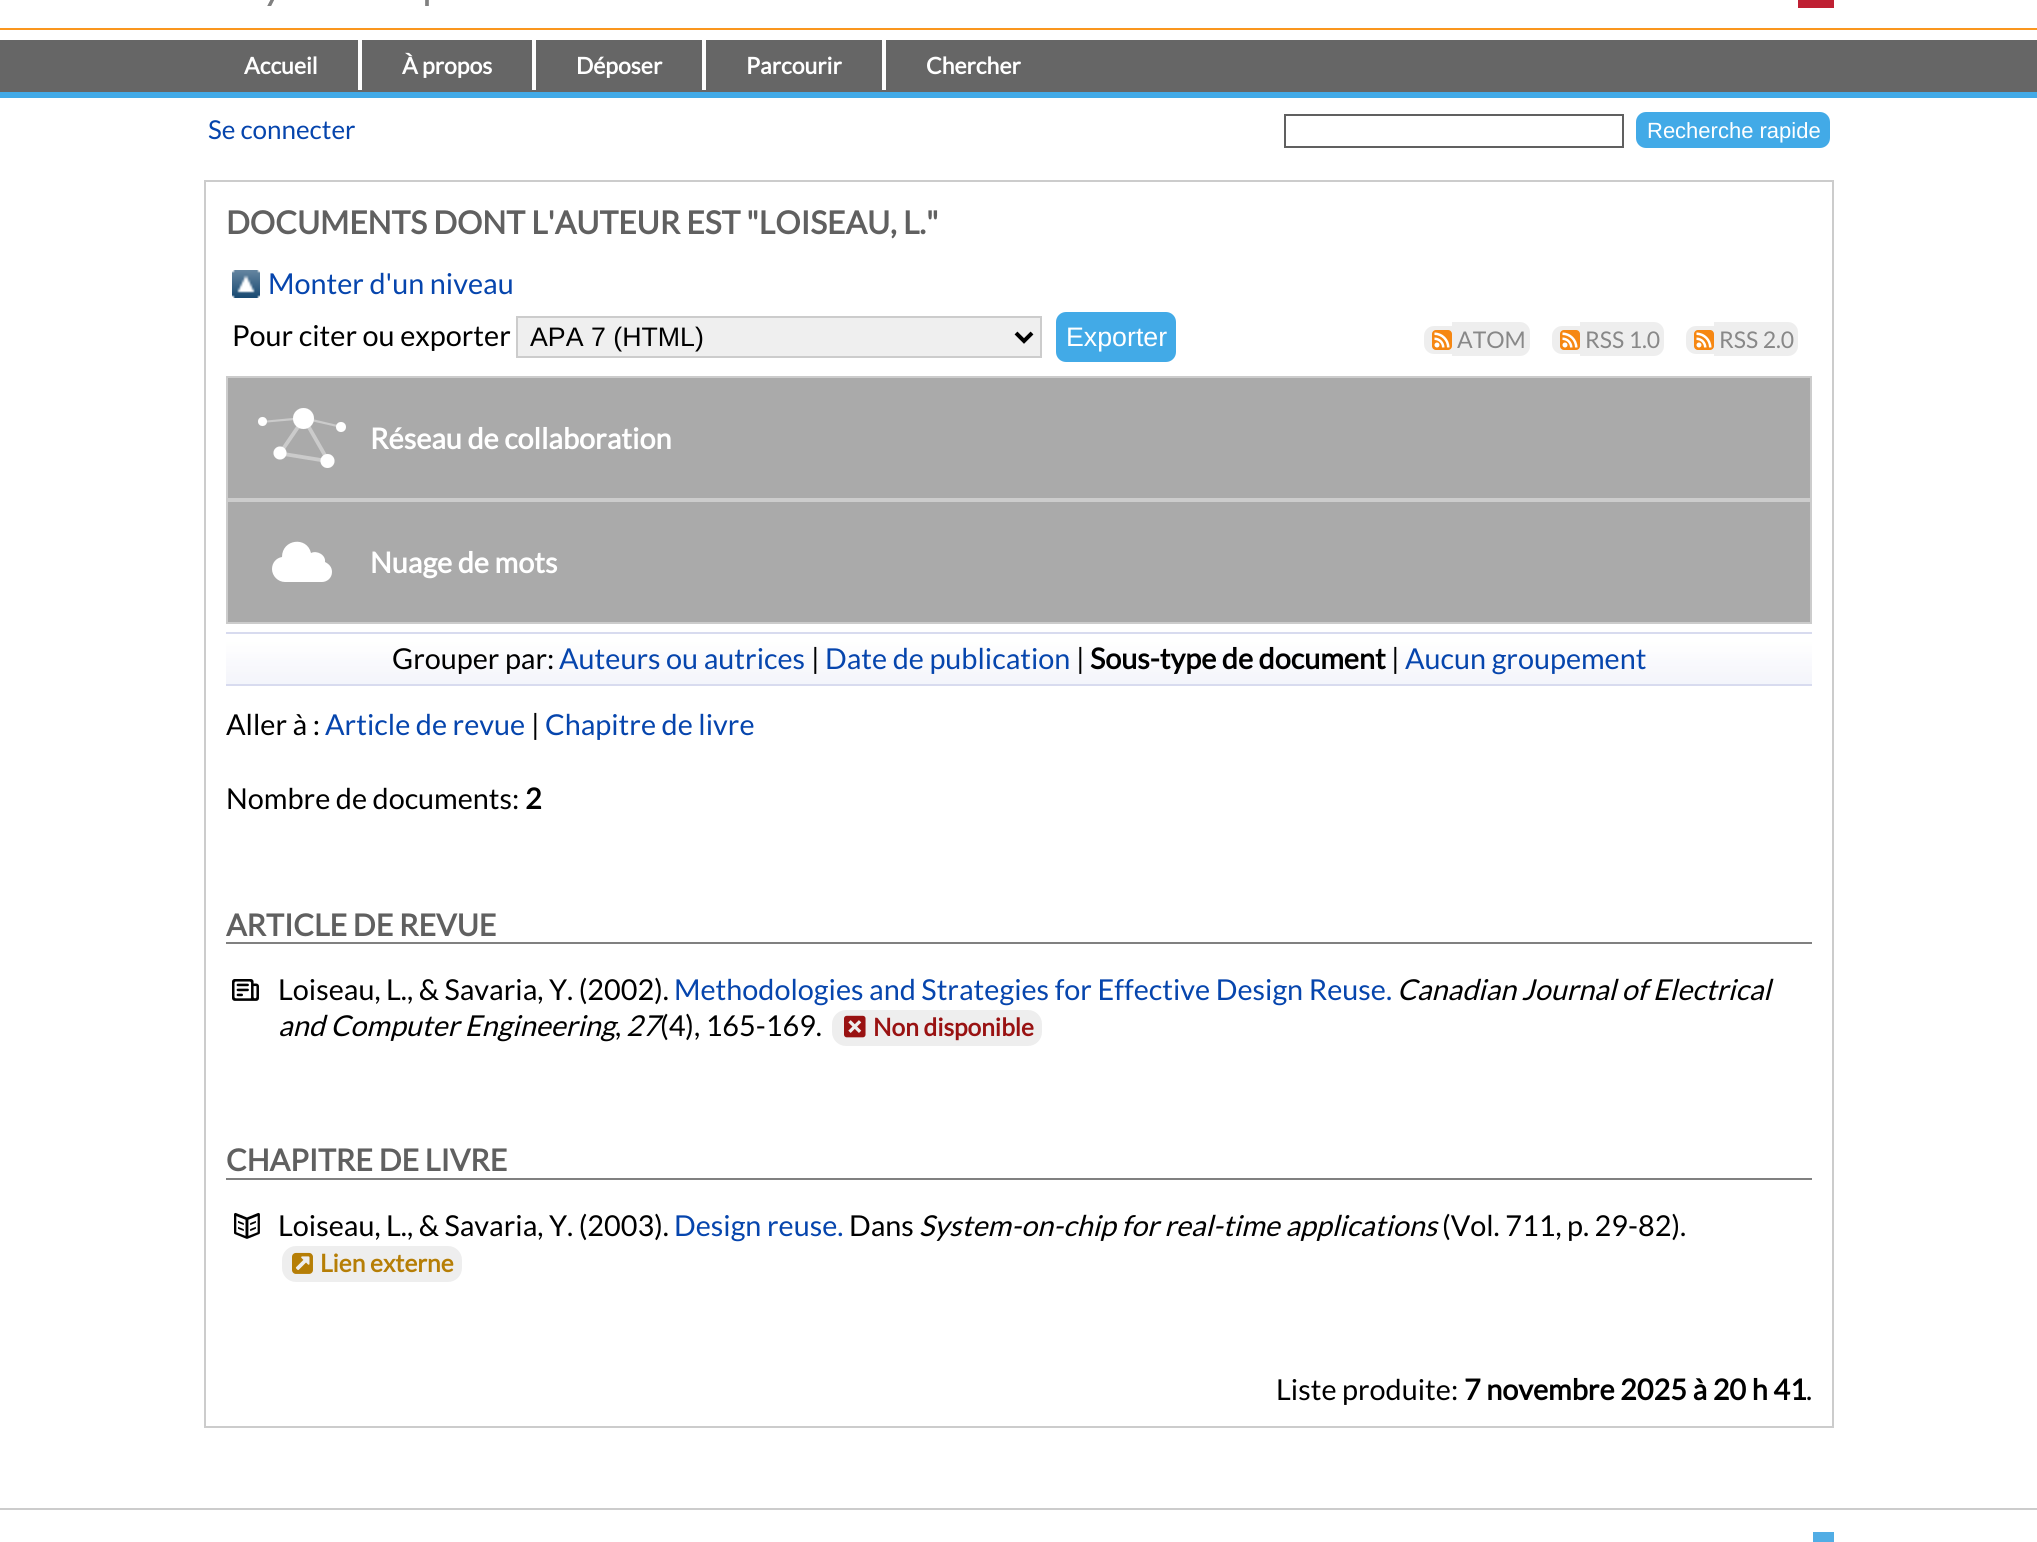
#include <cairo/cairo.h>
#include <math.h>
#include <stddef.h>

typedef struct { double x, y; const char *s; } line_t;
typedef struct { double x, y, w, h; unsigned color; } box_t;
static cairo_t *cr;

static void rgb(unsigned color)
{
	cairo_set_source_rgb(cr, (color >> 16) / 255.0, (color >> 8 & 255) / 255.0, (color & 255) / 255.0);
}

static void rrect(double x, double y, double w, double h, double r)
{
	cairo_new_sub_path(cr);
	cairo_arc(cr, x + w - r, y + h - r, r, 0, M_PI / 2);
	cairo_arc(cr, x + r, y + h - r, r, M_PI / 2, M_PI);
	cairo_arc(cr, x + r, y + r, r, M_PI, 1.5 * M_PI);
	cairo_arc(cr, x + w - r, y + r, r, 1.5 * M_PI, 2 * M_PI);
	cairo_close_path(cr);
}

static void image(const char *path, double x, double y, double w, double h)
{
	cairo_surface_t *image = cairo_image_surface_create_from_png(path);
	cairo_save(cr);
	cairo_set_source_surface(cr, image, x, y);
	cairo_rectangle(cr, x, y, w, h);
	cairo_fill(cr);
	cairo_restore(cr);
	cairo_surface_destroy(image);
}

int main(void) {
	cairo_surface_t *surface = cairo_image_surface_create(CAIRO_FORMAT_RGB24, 2037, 1542);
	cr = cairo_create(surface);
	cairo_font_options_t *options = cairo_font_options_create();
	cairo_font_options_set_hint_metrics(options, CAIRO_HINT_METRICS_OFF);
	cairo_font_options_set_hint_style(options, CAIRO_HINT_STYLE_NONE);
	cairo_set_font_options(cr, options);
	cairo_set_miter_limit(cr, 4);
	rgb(0xffffff);
	cairo_paint(cr);
	rgb(0xfa961e);
	cairo_rectangle(cr, 0, 28, 2037, 2);
	cairo_fill(cr);
	image("img/1.png", 267, 0, 162, 6);
	{
		static const box_t items[] = {
			{1798, 0, 36, 8, 0xbf2033},
			{0, 40, 2037, 52, 0x666666},
			{0, 92, 2037, 6, 0x42aae7},
			{358, 40, 4, 50, 0xffffff},
			{532, 40, 4, 50, 0xffffff},
			{702, 40, 4, 50, 0xffffff},
			{882, 40, 4, 50, 0xffffff},
		};
		for (size_t i = 0; i < sizeof items / sizeof *items; i++) {
			rgb(items[i].color);
			cairo_rectangle(cr, items[i].x, items[i].y, items[i].w, items[i].h);
			cairo_fill(cr);
		}
	}
	cairo_rectangle(cr, 1285, 115, 338, 32);
	rgb(0x606060);
	cairo_stroke(cr);
	rgb(0x42aae7);
	rrect(1636, 112, 194, 36, 10);
	cairo_fill(cr);
	cairo_rectangle(cr, 205, 181, 1628, 1246);
	rgb(0xcccccc);
	cairo_stroke(cr);
	image("img/2.png", 232, 270, 28, 28);
	rgb(0xefefef);
	cairo_rectangle(cr, 517, 317, 524, 40);
	cairo_fill_preserve(cr);
	rgb(0xcccccc);
	cairo_stroke(cr);
	cairo_new_path(cr);
	cairo_move_to(cr, 1016, 333);
	cairo_line_to(cr, 1024, 341);
	cairo_line_to(cr, 1032, 333);
	rgb(0x000000);
	cairo_set_line_width(cr, 4);
	cairo_stroke(cr);
	rgb(0x42aae7);
	rrect(1056, 312, 120, 50, 10);
	cairo_fill(cr);
	rgb(0xeeeeee);
	cairo_new_path(cr);
	cairo_move_to(cr, 1434, 326);
	cairo_line_to(cr, 1452, 326);
	cairo_line_to(cr, 1452, 354);
	cairo_line_to(cr, 1434, 354);
	cairo_curve_to(cr, 1428.5, 354, 1424, 349.5, 1424, 344);
	cairo_line_to(cr, 1424, 336);
	cairo_curve_to(cr, 1424, 330.5, 1428.5, 326, 1434, 326);
	cairo_close_path(cr);
	cairo_fill(cr);
	image("img/3.png", 1432, 330, 20, 20);
	cairo_rectangle(cr, 1452, 322, 6, 34);
	cairo_fill(cr);
	cairo_new_path(cr);
	cairo_move_to(cr, 1458, 322);
	cairo_line_to(cr, 1520, 322);
	cairo_curve_to(cr, 1525.5, 322, 1530, 326.5, 1530, 332);
	cairo_line_to(cr, 1530, 346);
	cairo_curve_to(cr, 1530, 351.5, 1525.5, 356, 1520, 356);
	cairo_line_to(cr, 1458, 356);
	cairo_close_path(cr);
	cairo_fill(cr);
	cairo_new_path(cr);
	cairo_move_to(cr, 1562, 326);
	cairo_line_to(cr, 1580, 326);
	cairo_line_to(cr, 1580, 354);
	cairo_line_to(cr, 1562, 354);
	cairo_curve_to(cr, 1556.5, 354, 1552, 349.5, 1552, 344);
	cairo_line_to(cr, 1552, 336);
	cairo_curve_to(cr, 1552, 330.5, 1556.5, 326, 1562, 326);
	cairo_close_path(cr);
	cairo_fill(cr);
	image("img/3.png", 1560, 330, 20, 20);
	cairo_rectangle(cr, 1580, 322, 4, 34);
	cairo_fill(cr);
	cairo_new_path(cr);
	cairo_move_to(cr, 1584, 322);
	cairo_line_to(cr, 1654, 322);
	cairo_curve_to(cr, 1659.5, 322, 1664, 326.5, 1664, 332);
	cairo_line_to(cr, 1664, 346);
	cairo_curve_to(cr, 1664, 351.5, 1659.5, 356, 1654, 356);
	cairo_line_to(cr, 1584, 356);
	cairo_close_path(cr);
	cairo_fill(cr);
	cairo_new_path(cr);
	cairo_move_to(cr, 1696, 326);
	cairo_line_to(cr, 1714, 326);
	cairo_line_to(cr, 1714, 354);
	cairo_line_to(cr, 1696, 354);
	cairo_curve_to(cr, 1690.5, 354, 1686, 349.5, 1686, 344);
	cairo_line_to(cr, 1686, 336);
	cairo_curve_to(cr, 1686, 330.5, 1690.5, 326, 1696, 326);
	cairo_close_path(cr);
	cairo_fill(cr);
	image("img/3.png", 1694, 330, 20, 20);
	cairo_rectangle(cr, 1714, 322, 4, 34);
	cairo_fill(cr);
	cairo_new_path(cr);
	cairo_move_to(cr, 1718, 322);
	cairo_line_to(cr, 1788, 322);
	cairo_curve_to(cr, 1793.5, 322, 1798, 326.5, 1798, 332);
	cairo_line_to(cr, 1798, 346);
	cairo_curve_to(cr, 1798, 351.5, 1793.5, 356, 1788, 356);
	cairo_line_to(cr, 1718, 356);
	cairo_close_path(cr);
	cairo_fill(cr);
	rgb(0xaaaaaa);
	cairo_rectangle(cr, 227, 377, 1584, 122);
	cairo_fill_preserve(cr);
	rgb(0xcccccc);
	cairo_set_line_width(cr, 2);
	cairo_stroke(cr);
	image("img/4.png", 258, 408, 88, 60);
	rgb(0xaaaaaa);
	cairo_rectangle(cr, 227, 501, 1584, 122);
	cairo_fill_preserve(cr);
	rgb(0xcccccc);
	cairo_stroke(cr);
	rgb(0xffffff);
	cairo_new_path(cr);
	cairo_move_to(cr, 282, 557);
	cairo_curve_to(cr, 282, 539, 307, 536, 311, 553);
	cairo_curve_to(cr, 317, 550, 326, 555, 325, 562);
	cairo_curve_to(cr, 329, 564, 332, 567, 332, 572);
	cairo_curve_to(cr, 332, 578, 327, 582, 322, 582);
	cairo_line_to(cr, 285, 582);
	cairo_curve_to(cr, 278, 582, 272, 576, 272, 569);
	cairo_curve_to(cr, 272, 563, 276, 558, 282, 557);
	cairo_close_path(cr);
	cairo_fill(cr);
	image("img/5.png", 226, 634, 1586, 50);
	{
		static const box_t items[] = {
			{226, 632, 1586, 2, 0xd8dbef},
			{226, 684, 1586, 2, 0xd8dbef},
			{226, 942, 1586, 2, 0x808080},
		};
		for (size_t i = 0; i < sizeof items / sizeof *items; i++) {
			rgb(items[i].color);
			cairo_rectangle(cr, items[i].x, items[i].y, items[i].w, items[i].h);
			cairo_fill(cr);
		}
	}
	image("img/6.png", 232, 979, 27, 22);
	rgb(0xeeeeee);
	rrect(832, 1010, 210, 36, 14);
	cairo_fill(cr);
	image("img/7.png", 844, 1015, 22, 23);
	rgb(0x808080);
	cairo_rectangle(cr, 226, 1178, 1586, 2);
	cairo_fill(cr);
	image("img/8.png", 234, 1212, 26, 27);
	rgb(0xeeeeee);
	rrect(282, 1246, 180, 36, 14);
	cairo_fill(cr);
	image("img/9.png", 292, 1252, 21, 22);
	rgb(0xcccccc);
	cairo_rectangle(cr, 0, 1508, 2037, 2);
	cairo_fill(cr);
	rgb(0x51ade5);
	cairo_rectangle(cr, 1813, 1532, 21, 10);
	cairo_fill(cr);
	cairo_select_font_face(cr, "Lato", CAIRO_FONT_SLANT_NORMAL, CAIRO_FONT_WEIGHT_BOLD);
	cairo_set_font_size(cr, 23);
	rgb(0xffffff);
	{
		static const line_t items[] = {
			{244, 74, "Accueil"},
			{402, 74, "À propos"},
			{576, 74, "Déposer"},
			{746, 74, "Parcourir"},
			{926, 74, "Chercher"},
		};
		for (size_t i = 0; i < sizeof items / sizeof *items; i++) {
			cairo_move_to(cr, items[i].x, items[i].y);
			cairo_show_text(cr, items[i].s);
		}
	}
	cairo_select_font_face(cr, "Lato", CAIRO_FONT_SLANT_NORMAL, CAIRO_FONT_WEIGHT_NORMAL);
	cairo_set_font_size(cr, 26);
	rgb(0x0645ad);
	cairo_move_to(cr, 208, 139);
	cairo_show_text(cr, "Se connecter");
	cairo_select_font_face(cr, "Liberation Sans", CAIRO_FONT_SLANT_NORMAL, CAIRO_FONT_WEIGHT_NORMAL);
	cairo_set_font_size(cr, 22);
	rgb(0xffffff);
	cairo_move_to(cr, 1647, 138);
	cairo_show_text(cr, "Recherche rapide");
	cairo_select_font_face(cr, "Lato", CAIRO_FONT_SLANT_NORMAL, CAIRO_FONT_WEIGHT_BOLD);
	cairo_set_font_size(cr, 31.7);
	rgb(0x606060);
	cairo_move_to(cr, 226, 234);
	cairo_show_text(cr, "DOCUMENTS DONT L'AUTEUR EST \"LOISEAU, L.\"");
	cairo_select_font_face(cr, "Lato", CAIRO_FONT_SLANT_NORMAL, CAIRO_FONT_WEIGHT_NORMAL);
	cairo_set_font_size(cr, 28.8);
	rgb(0x0645ad);
	cairo_move_to(cr, 268, 294);
	cairo_show_text(cr, "Monter d'un niveau");
	rgb(0x000000);
	cairo_move_to(cr, 232, 346);
	cairo_show_text(cr, "Pour citer ou exporter");
	cairo_select_font_face(cr, "Liberation Sans", CAIRO_FONT_SLANT_NORMAL, CAIRO_FONT_WEIGHT_NORMAL);
	cairo_set_font_size(cr, 26.75);
	cairo_move_to(cr, 530, 346);
	cairo_show_text(cr, "APA 7 (HTML)");
	rgb(0xffffff);
	cairo_move_to(cr, 1066, 346);
	cairo_show_text(cr, "Exporter");
	cairo_select_font_face(cr, "Lato", CAIRO_FONT_SLANT_NORMAL, CAIRO_FONT_WEIGHT_NORMAL);
	cairo_set_font_size(cr, 23);
	rgb(0x888888);
	{
		static const line_t items[] = {
			{1457, 348, "ATOM"},
			{1585, 348, "RSS 1.0"},
			{1719, 348, "RSS 2.0"},
		};
		for (size_t i = 0; i < sizeof items / sizeof *items; i++) {
			cairo_move_to(cr, items[i].x, items[i].y);
			cairo_show_text(cr, items[i].s);
		}
	}
	cairo_select_font_face(cr, "Lato", CAIRO_FONT_SLANT_NORMAL, CAIRO_FONT_WEIGHT_BOLD);
	cairo_set_font_size(cr, 28.8);
	rgb(0xffffff);
	cairo_move_to(cr, 370, 449);
	cairo_show_text(cr, "Réseau de collaboration");
	cairo_move_to(cr, 370, 573);
	cairo_show_text(cr, "Nuage de mots");
	cairo_select_font_face(cr, "Lato", CAIRO_FONT_SLANT_NORMAL, CAIRO_FONT_WEIGHT_NORMAL);
	rgb(0x000000);
	cairo_move_to(cr, 392, 669);
	cairo_show_text(cr, "Grouper par:");
	rgb(0x0645ad);
	cairo_move_to(cr, 559, 669);
	cairo_show_text(cr, "Auteurs ou autrices");
	rgb(0x000000);
	cairo_move_to(cr, 811, 669);
	cairo_show_text(cr, "|");
	rgb(0x0645ad);
	cairo_move_to(cr, 825, 669);
	cairo_show_text(cr, "Date de publication");
	rgb(0x000000);
	cairo_move_to(cr, 1076, 669);
	cairo_show_text(cr, "|");
	cairo_select_font_face(cr, "Lato", CAIRO_FONT_SLANT_NORMAL, CAIRO_FONT_WEIGHT_BOLD);
	cairo_move_to(cr, 1090, 669);
	cairo_show_text(cr, "Sous-type de document");
	cairo_select_font_face(cr, "Lato", CAIRO_FONT_SLANT_NORMAL, CAIRO_FONT_WEIGHT_NORMAL);
	cairo_move_to(cr, 1391, 669);
	cairo_show_text(cr, "|");
	rgb(0x0645ad);
	cairo_move_to(cr, 1405, 669);
	cairo_show_text(cr, "Aucun groupement");
	rgb(0x000000);
	cairo_move_to(cr, 226, 735);
	cairo_show_text(cr, "Aller à :");
	rgb(0x0645ad);
	cairo_move_to(cr, 325, 735);
	cairo_show_text(cr, "Article de revue");
	rgb(0x000000);
	cairo_move_to(cr, 531, 735);
	cairo_show_text(cr, "|");
	rgb(0x0645ad);
	cairo_move_to(cr, 545, 735);
	cairo_show_text(cr, "Chapitre de livre");
	rgb(0x000000);
	cairo_move_to(cr, 226, 809);
	cairo_show_text(cr, "Nombre de documents:");
	cairo_select_font_face(cr, "Lato", CAIRO_FONT_SLANT_NORMAL, CAIRO_FONT_WEIGHT_BOLD);
	cairo_move_to(cr, 525, 809);
	cairo_show_text(cr, "2");
	cairo_set_font_size(cr, 30.25);
	rgb(0x606060);
	cairo_move_to(cr, 226, 936);
	cairo_show_text(cr, "ARTICLE DE REVUE");
	cairo_select_font_face(cr, "Lato", CAIRO_FONT_SLANT_NORMAL, CAIRO_FONT_WEIGHT_NORMAL);
	cairo_set_font_size(cr, 28.8);
	rgb(0x000000);
	cairo_move_to(cr, 278, 1000);
	cairo_show_text(cr, "Loiseau, L., & Savaria, Y. (2002).");
	rgb(0x0645ad);
	cairo_move_to(cr, 674, 1000);
	cairo_show_text(cr, "Methodologies and Strategies for Effective Design Reuse.");
	cairo_select_font_face(cr, "Lato", CAIRO_FONT_SLANT_ITALIC, CAIRO_FONT_WEIGHT_NORMAL);
	rgb(0x000000);
	{
		static const line_t items[] = {
			{1397, 1000, "Canadian Journal of Electrical"},
			{278, 1036, "and Computer Engineering"},
			{626, 1036, "27"},
		};
		for (size_t i = 0; i < sizeof items / sizeof *items; i++) {
			cairo_move_to(cr, items[i].x, items[i].y);
			cairo_show_text(cr, items[i].s);
		}
	}
	cairo_select_font_face(cr, "Lato", CAIRO_FONT_SLANT_NORMAL, CAIRO_FONT_WEIGHT_NORMAL);
	cairo_move_to(cr, 660, 1036);
	cairo_show_text(cr, "(4), 165-169.");
	cairo_select_font_face(cr, "Lato", CAIRO_FONT_SLANT_NORMAL, CAIRO_FONT_WEIGHT_BOLD);
	cairo_set_font_size(cr, 24.5);
	rgb(0x991212);
	cairo_move_to(cr, 873, 1036);
	cairo_show_text(cr, "Non disponible");
	cairo_select_font_face(cr, "Lato", CAIRO_FONT_SLANT_NORMAL, CAIRO_FONT_WEIGHT_NORMAL);
	cairo_set_font_size(cr, 28.8);
	rgb(0x000000);
	cairo_move_to(cr, 615, 1036);
	cairo_show_text(cr, ",");
	cairo_select_font_face(cr, "Lato", CAIRO_FONT_SLANT_NORMAL, CAIRO_FONT_WEIGHT_BOLD);
	cairo_set_font_size(cr, 30.25);
	rgb(0x606060);
	cairo_move_to(cr, 226, 1171);
	cairo_show_text(cr, "CHAPITRE DE LIVRE");
	cairo_select_font_face(cr, "Lato", CAIRO_FONT_SLANT_NORMAL, CAIRO_FONT_WEIGHT_NORMAL);
	cairo_set_font_size(cr, 28.8);
	rgb(0x000000);
	cairo_move_to(cr, 278, 1236);
	cairo_show_text(cr, "Loiseau, L., & Savaria, Y. (2003).");
	rgb(0x0645ad);
	cairo_move_to(cr, 674, 1236);
	cairo_show_text(cr, "Design reuse.");
	rgb(0x000000);
	cairo_move_to(cr, 849, 1236);
	cairo_show_text(cr, "Dans");
	cairo_select_font_face(cr, "Lato", CAIRO_FONT_SLANT_ITALIC, CAIRO_FONT_WEIGHT_NORMAL);
	cairo_move_to(cr, 919, 1236);
	cairo_show_text(cr, "System-on-chip for real-time applications");
	cairo_select_font_face(cr, "Lato", CAIRO_FONT_SLANT_NORMAL, CAIRO_FONT_WEIGHT_NORMAL);
	cairo_move_to(cr, 1442, 1236);
	cairo_show_text(cr, "(Vol. 711, p. 29-82).");
	cairo_select_font_face(cr, "Lato", CAIRO_FONT_SLANT_NORMAL, CAIRO_FONT_WEIGHT_BOLD);
	cairo_set_font_size(cr, 24.5);
	rgb(0xb67e06);
	cairo_move_to(cr, 320, 1272);
	cairo_show_text(cr, "Lien externe");
	cairo_select_font_face(cr, "Lato", CAIRO_FONT_SLANT_NORMAL, CAIRO_FONT_WEIGHT_NORMAL);
	cairo_set_font_size(cr, 28.8);
	rgb(0x000000);
	cairo_move_to(cr, 1276, 1400);
	cairo_show_text(cr, "Liste produite:");
	cairo_select_font_face(cr, "Lato", CAIRO_FONT_SLANT_NORMAL, CAIRO_FONT_WEIGHT_BOLD);
	cairo_move_to(cr, 1464, 1400);
	cairo_show_text(cr, "7 novembre 2025 à 20 h 41");
	cairo_select_font_face(cr, "Lato", CAIRO_FONT_SLANT_NORMAL, CAIRO_FONT_WEIGHT_NORMAL);
	cairo_move_to(cr, 1806, 1400);
	cairo_show_text(cr, ".");
	cairo_surface_write_to_png(surface, "page.png");
	cairo_font_options_destroy(options);
	cairo_destroy(cr);
	cairo_surface_destroy(surface);
	return 0;
}
